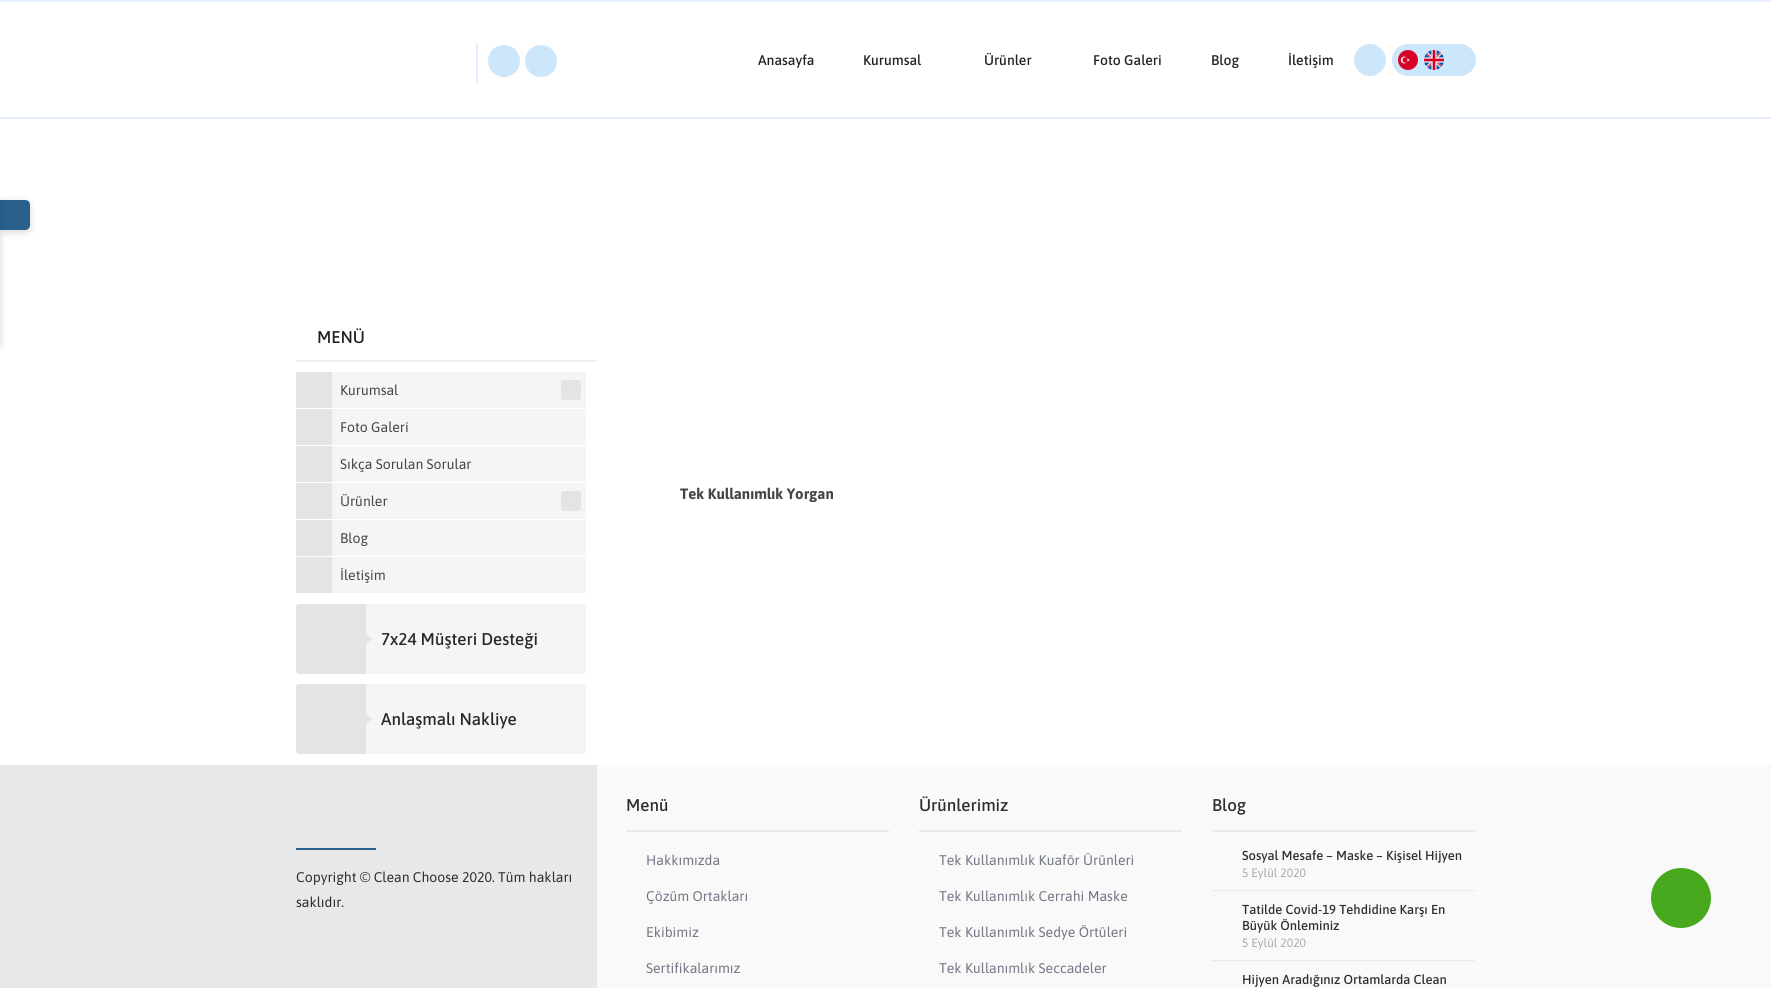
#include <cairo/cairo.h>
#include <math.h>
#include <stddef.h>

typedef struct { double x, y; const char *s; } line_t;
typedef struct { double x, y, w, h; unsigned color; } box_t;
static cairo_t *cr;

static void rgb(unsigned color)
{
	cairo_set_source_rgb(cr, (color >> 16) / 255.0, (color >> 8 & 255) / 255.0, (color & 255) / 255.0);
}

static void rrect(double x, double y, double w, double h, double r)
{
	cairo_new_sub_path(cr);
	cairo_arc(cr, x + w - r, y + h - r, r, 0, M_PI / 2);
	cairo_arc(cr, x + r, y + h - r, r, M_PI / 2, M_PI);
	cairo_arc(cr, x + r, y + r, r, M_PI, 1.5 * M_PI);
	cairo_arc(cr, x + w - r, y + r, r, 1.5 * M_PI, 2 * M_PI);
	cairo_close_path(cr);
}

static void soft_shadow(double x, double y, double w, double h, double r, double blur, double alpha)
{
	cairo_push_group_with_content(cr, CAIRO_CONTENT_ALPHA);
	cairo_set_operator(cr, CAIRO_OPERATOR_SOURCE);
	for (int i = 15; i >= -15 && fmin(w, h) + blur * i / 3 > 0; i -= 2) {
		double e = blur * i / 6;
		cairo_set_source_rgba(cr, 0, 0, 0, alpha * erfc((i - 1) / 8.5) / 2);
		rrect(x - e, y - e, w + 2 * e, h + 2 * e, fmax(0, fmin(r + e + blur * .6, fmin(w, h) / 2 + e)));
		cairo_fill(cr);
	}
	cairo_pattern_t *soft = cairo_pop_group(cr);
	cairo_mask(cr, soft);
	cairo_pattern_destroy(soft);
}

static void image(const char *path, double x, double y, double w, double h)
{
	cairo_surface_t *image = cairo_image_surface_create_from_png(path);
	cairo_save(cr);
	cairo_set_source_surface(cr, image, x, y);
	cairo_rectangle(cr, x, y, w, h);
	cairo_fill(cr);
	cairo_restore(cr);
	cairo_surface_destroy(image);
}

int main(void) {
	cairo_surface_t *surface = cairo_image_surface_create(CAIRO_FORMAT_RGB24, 1771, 988);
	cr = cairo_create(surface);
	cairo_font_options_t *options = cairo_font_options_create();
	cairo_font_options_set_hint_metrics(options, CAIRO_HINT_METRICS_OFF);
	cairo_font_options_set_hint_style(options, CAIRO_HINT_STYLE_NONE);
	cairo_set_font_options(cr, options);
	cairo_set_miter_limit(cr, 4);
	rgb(0xffffff);
	cairo_paint(cr);
	{
		static const box_t items[] = {
			{0, 0, 1771, 2, 0xe6edff},
			{0, 117, 1771, 2, 0xe6edff},
			{476, 43, 2, 40, 0xe6edff},
		};
		for (size_t i = 0; i < sizeof items / sizeof *items; i++) {
			rgb(items[i].color);
			cairo_rectangle(cr, items[i].x, items[i].y, items[i].w, items[i].h);
			cairo_fill(cr);
		}
	}
	rgb(0xcce6fc);
	cairo_arc(cr, 504, 61, 16, 0, 2 * M_PI);
	cairo_fill(cr);
	cairo_arc(cr, 541, 61, 16, 0, 2 * M_PI);
	cairo_fill(cr);
	cairo_arc(cr, 1370, 60, 16, 0, 2 * M_PI);
	cairo_fill(cr);
	rrect(1392, 44, 84, 32, 16);
	cairo_fill(cr);
	image("img/1.png", 1398, 50, 20, 20);
	image("img/2.png", 1424, 50, 20, 20);
	rgb(0x000000);
	soft_shadow(0, 202, 30, 30, 5, 4, 0.15);
	rgb(0x2a618c);
	cairo_new_path(cr);
	cairo_move_to(cr, 0, 200);
	cairo_line_to(cr, 25, 200);
	cairo_curve_to(cr, 28, 200, 30, 202, 30, 205);
	cairo_line_to(cr, 30, 225);
	cairo_curve_to(cr, 30, 228, 28, 230, 25, 230);
	cairo_line_to(cr, 0, 230);
	cairo_close_path(cr);
	cairo_fill(cr);
	rgb(0x000000);
	soft_shadow(-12, 202, 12, 144, 0, 4, 0.15);
	{
		static const box_t items[] = {
			{296, 360, 300, 2, 0xededed},
			{332, 372, 254, 36, 0xf5f5f5},
			{296, 372, 36, 36, 0xe4e4e4},
		};
		for (size_t i = 0; i < sizeof items / sizeof *items; i++) {
			rgb(items[i].color);
			cairo_rectangle(cr, items[i].x, items[i].y, items[i].w, items[i].h);
			cairo_fill(cr);
		}
	}
	rrect(561, 380, 20, 20, 3);
	cairo_fill(cr);
	{
		static const box_t items[] = {
			{332, 409, 254, 36, 0xf5f5f5},
			{296, 409, 36, 36, 0xe4e4e4},
			{332, 446, 254, 36, 0xf5f5f5},
			{296, 446, 36, 36, 0xe4e4e4},
			{332, 483, 254, 36, 0xf5f5f5},
			{296, 483, 36, 36, 0xe4e4e4},
		};
		for (size_t i = 0; i < sizeof items / sizeof *items; i++) {
			rgb(items[i].color);
			cairo_rectangle(cr, items[i].x, items[i].y, items[i].w, items[i].h);
			cairo_fill(cr);
		}
	}
	rrect(561, 491, 20, 20, 3);
	cairo_fill(cr);
	{
		static const box_t items[] = {
			{332, 520, 254, 36, 0xf5f5f5},
			{296, 520, 36, 36, 0xe4e4e4},
			{332, 557, 254, 36, 0xf5f5f5},
			{296, 557, 36, 36, 0xe4e4e4},
		};
		for (size_t i = 0; i < sizeof items / sizeof *items; i++) {
			rgb(items[i].color);
			cairo_rectangle(cr, items[i].x, items[i].y, items[i].w, items[i].h);
			cairo_fill(cr);
		}
	}
	cairo_new_path(cr);
	cairo_move_to(cr, 299, 604);
	cairo_line_to(cr, 366, 604);
	cairo_line_to(cr, 366, 674);
	cairo_line_to(cr, 299, 674);
	cairo_curve_to(cr, 297.5, 674, 296, 672.5, 296, 671);
	cairo_line_to(cr, 296, 607);
	cairo_curve_to(cr, 296, 605.5, 297.5, 604, 299, 604);
	cairo_close_path(cr);
	cairo_fill(cr);
	rgb(0xf5f5f5);
	cairo_new_path(cr);
	cairo_move_to(cr, 366, 604);
	cairo_line_to(cr, 583, 604);
	cairo_curve_to(cr, 584.5, 604, 586, 605.5, 586, 607);
	cairo_line_to(cr, 586, 671);
	cairo_curve_to(cr, 586, 672.5, 584.5, 674, 583, 674);
	cairo_line_to(cr, 366, 674);
	cairo_close_path(cr);
	cairo_fill(cr);
	rgb(0xe4e4e4);
	cairo_new_path(cr);
	cairo_move_to(cr, 366, 644);
	cairo_line_to(cr, 366, 634);
	cairo_line_to(cr, 372, 639);
	cairo_close_path(cr);
	cairo_fill(cr);
	cairo_new_path(cr);
	cairo_move_to(cr, 299, 684);
	cairo_line_to(cr, 366, 684);
	cairo_line_to(cr, 366, 754);
	cairo_line_to(cr, 299, 754);
	cairo_curve_to(cr, 297.5, 754, 296, 752.5, 296, 751);
	cairo_line_to(cr, 296, 687);
	cairo_curve_to(cr, 296, 685.5, 297.5, 684, 299, 684);
	cairo_close_path(cr);
	cairo_fill(cr);
	rgb(0xf5f5f5);
	cairo_new_path(cr);
	cairo_move_to(cr, 366, 684);
	cairo_line_to(cr, 583, 684);
	cairo_curve_to(cr, 584.5, 684, 586, 685.5, 586, 687);
	cairo_line_to(cr, 586, 751);
	cairo_curve_to(cr, 586, 752.5, 584.5, 754, 583, 754);
	cairo_line_to(cr, 366, 754);
	cairo_close_path(cr);
	cairo_fill(cr);
	rgb(0xe4e4e4);
	cairo_new_path(cr);
	cairo_move_to(cr, 366, 724);
	cairo_line_to(cr, 366, 714);
	cairo_line_to(cr, 372, 719);
	cairo_close_path(cr);
	cairo_fill(cr);
	{
		static const box_t items[] = {
			{597, 765, 1174, 223, 0xf9f9f9},
			{0, 765, 597, 223, 0xe8e8e8},
			{296, 848, 80, 2, 0x2a618c},
			{626, 830, 263, 2, 0xe9e9e9},
			{919, 830, 263, 2, 0xe9e9e9},
			{1212, 830, 263, 2, 0xe9e9e9},
			{1212, 890, 263, 1, 0xe9e9e9},
			{1212, 960, 263, 1, 0xe9e9e9},
		};
		for (size_t i = 0; i < sizeof items / sizeof *items; i++) {
			rgb(items[i].color);
			cairo_rectangle(cr, items[i].x, items[i].y, items[i].w, items[i].h);
			cairo_fill(cr);
		}
	}
	rgb(0x48a91f);
	cairo_arc(cr, 1681, 898, 30, 0, 2 * M_PI);
	cairo_fill(cr);
	cairo_select_font_face(cr, "Asap Medium", CAIRO_FONT_SLANT_NORMAL, CAIRO_FONT_WEIGHT_NORMAL);
	cairo_set_font_size(cr, 14);
	rgb(0x222222);
	{
		static const line_t items[] = {
			{758, 65, "Anasayfa"},
			{863, 65, "Kurumsal"},
			{984, 65, "Ürünler"},
			{1093, 65, "Foto Galeri"},
			{1211, 65, "Blog"},
			{1288, 65, "İletişim"},
		};
		for (size_t i = 0; i < sizeof items / sizeof *items; i++) {
			cairo_move_to(cr, items[i].x, items[i].y);
			cairo_show_text(cr, items[i].s);
		}
	}
	cairo_set_font_size(cr, 17);
	cairo_move_to(cr, 317, 343);
	cairo_show_text(cr, "MENÜ");
	cairo_select_font_face(cr, "Asap", CAIRO_FONT_SLANT_NORMAL, CAIRO_FONT_WEIGHT_NORMAL);
	cairo_set_font_size(cr, 14);
	rgb(0x464646);
	{
		static const line_t items[] = {
			{340, 395, "Kurumsal"},
			{340, 432, "Foto Galeri"},
			{340, 469, "Sıkça Sorulan Sorular"},
			{340, 506, "Ürünler"},
			{340, 543, "Blog"},
			{340, 580, "İletişim"},
		};
		for (size_t i = 0; i < sizeof items / sizeof *items; i++) {
			cairo_move_to(cr, items[i].x, items[i].y);
			cairo_show_text(cr, items[i].s);
		}
	}
	cairo_select_font_face(cr, "Asap Medium", CAIRO_FONT_SLANT_NORMAL, CAIRO_FONT_WEIGHT_NORMAL);
	cairo_set_font_size(cr, 17);
	rgb(0x282828);
	cairo_move_to(cr, 381, 645);
	cairo_show_text(cr, "7x24 Müşteri Desteği");
	cairo_move_to(cr, 381, 725);
	cairo_show_text(cr, "Anlaşmalı Nakliye");
	cairo_save(cr);
	cairo_rectangle(cr, 626, 322, 850, 180);
	cairo_clip(cr);
	cairo_select_font_face(cr, "Asap", CAIRO_FONT_SLANT_NORMAL, CAIRO_FONT_WEIGHT_BOLD);
	cairo_set_font_size(cr, 15);
	rgb(0x464646);
	cairo_move_to(cr, 680, 499);
	cairo_show_text(cr, "Tek Kullanımlık Yorgan");
	cairo_restore(cr);
	cairo_select_font_face(cr, "Asap", CAIRO_FONT_SLANT_NORMAL, CAIRO_FONT_WEIGHT_NORMAL);
	cairo_set_font_size(cr, 14);
	rgb(0x2e2e2e);
	cairo_move_to(cr, 296, 882);
	cairo_show_text(cr, "Copyright © Clean Choose 2020. Tüm hakları");
	cairo_move_to(cr, 296, 907);
	cairo_show_text(cr, "saklıdır.");
	cairo_select_font_face(cr, "Asap Medium", CAIRO_FONT_SLANT_NORMAL, CAIRO_FONT_WEIGHT_NORMAL);
	cairo_set_font_size(cr, 17);
	cairo_move_to(cr, 626, 811);
	cairo_show_text(cr, "Menü");
	cairo_select_font_face(cr, "Asap", CAIRO_FONT_SLANT_NORMAL, CAIRO_FONT_WEIGHT_NORMAL);
	cairo_set_font_size(cr, 14);
	rgb(0x747786);
	{
		static const line_t items[] = {
			{646, 865, "Hakkımızda"},
			{646, 901, "Çözüm Ortakları"},
			{646, 937, "Ekibimiz"},
			{646, 973, "Sertifikalarımız"},
		};
		for (size_t i = 0; i < sizeof items / sizeof *items; i++) {
			cairo_move_to(cr, items[i].x, items[i].y);
			cairo_show_text(cr, items[i].s);
		}
	}
	cairo_select_font_face(cr, "Asap Medium", CAIRO_FONT_SLANT_NORMAL, CAIRO_FONT_WEIGHT_NORMAL);
	cairo_set_font_size(cr, 17);
	rgb(0x2e2e2e);
	cairo_move_to(cr, 919, 811);
	cairo_show_text(cr, "Ürünlerimiz");
	cairo_select_font_face(cr, "Asap", CAIRO_FONT_SLANT_NORMAL, CAIRO_FONT_WEIGHT_NORMAL);
	cairo_set_font_size(cr, 14);
	rgb(0x747786);
	{
		static const line_t items[] = {
			{939, 865, "Tek Kullanımlık Kuaför Ürünleri"},
			{939, 901, "Tek Kullanımlık Cerrahi Maske"},
			{939, 937, "Tek Kullanımlık Sedye Örtüleri"},
			{939, 973, "Tek Kullanımlık Seccadeler"},
		};
		for (size_t i = 0; i < sizeof items / sizeof *items; i++) {
			cairo_move_to(cr, items[i].x, items[i].y);
			cairo_show_text(cr, items[i].s);
		}
	}
	cairo_select_font_face(cr, "Asap Medium", CAIRO_FONT_SLANT_NORMAL, CAIRO_FONT_WEIGHT_NORMAL);
	cairo_set_font_size(cr, 17);
	rgb(0x2e2e2e);
	cairo_move_to(cr, 1212, 811);
	cairo_show_text(cr, "Blog");
	cairo_set_font_size(cr, 13);
	cairo_move_to(cr, 1242, 860);
	cairo_show_text(cr, "Sosyal Mesafe – Maske – Kişisel Hijyen");
	cairo_select_font_face(cr, "Asap", CAIRO_FONT_SLANT_NORMAL, CAIRO_FONT_WEIGHT_NORMAL);
	cairo_set_font_size(cr, 12);
	rgb(0xaaaaaa);
	cairo_move_to(cr, 1242, 877);
	cairo_show_text(cr, "5 Eylül 2020");
	cairo_select_font_face(cr, "Asap Medium", CAIRO_FONT_SLANT_NORMAL, CAIRO_FONT_WEIGHT_NORMAL);
	cairo_set_font_size(cr, 13);
	rgb(0x2e2e2e);
	cairo_move_to(cr, 1242, 914);
	cairo_show_text(cr, "Tatilde Covid-19 Tehdidine Karşı En");
	cairo_move_to(cr, 1242, 930);
	cairo_show_text(cr, "Büyük Önleminiz");
	cairo_select_font_face(cr, "Asap", CAIRO_FONT_SLANT_NORMAL, CAIRO_FONT_WEIGHT_NORMAL);
	cairo_set_font_size(cr, 12);
	rgb(0xaaaaaa);
	cairo_move_to(cr, 1242, 947);
	cairo_show_text(cr, "5 Eylül 2020");
	cairo_select_font_face(cr, "Asap Medium", CAIRO_FONT_SLANT_NORMAL, CAIRO_FONT_WEIGHT_NORMAL);
	cairo_set_font_size(cr, 13);
	rgb(0x2e2e2e);
	cairo_move_to(cr, 1242, 984);
	cairo_show_text(cr, "Hijyen Aradığınız Ortamlarda Clean");
	cairo_surface_write_to_png(surface, "page.png");
	cairo_font_options_destroy(options);
	cairo_destroy(cr);
	cairo_surface_destroy(surface);
	return 0;
}
